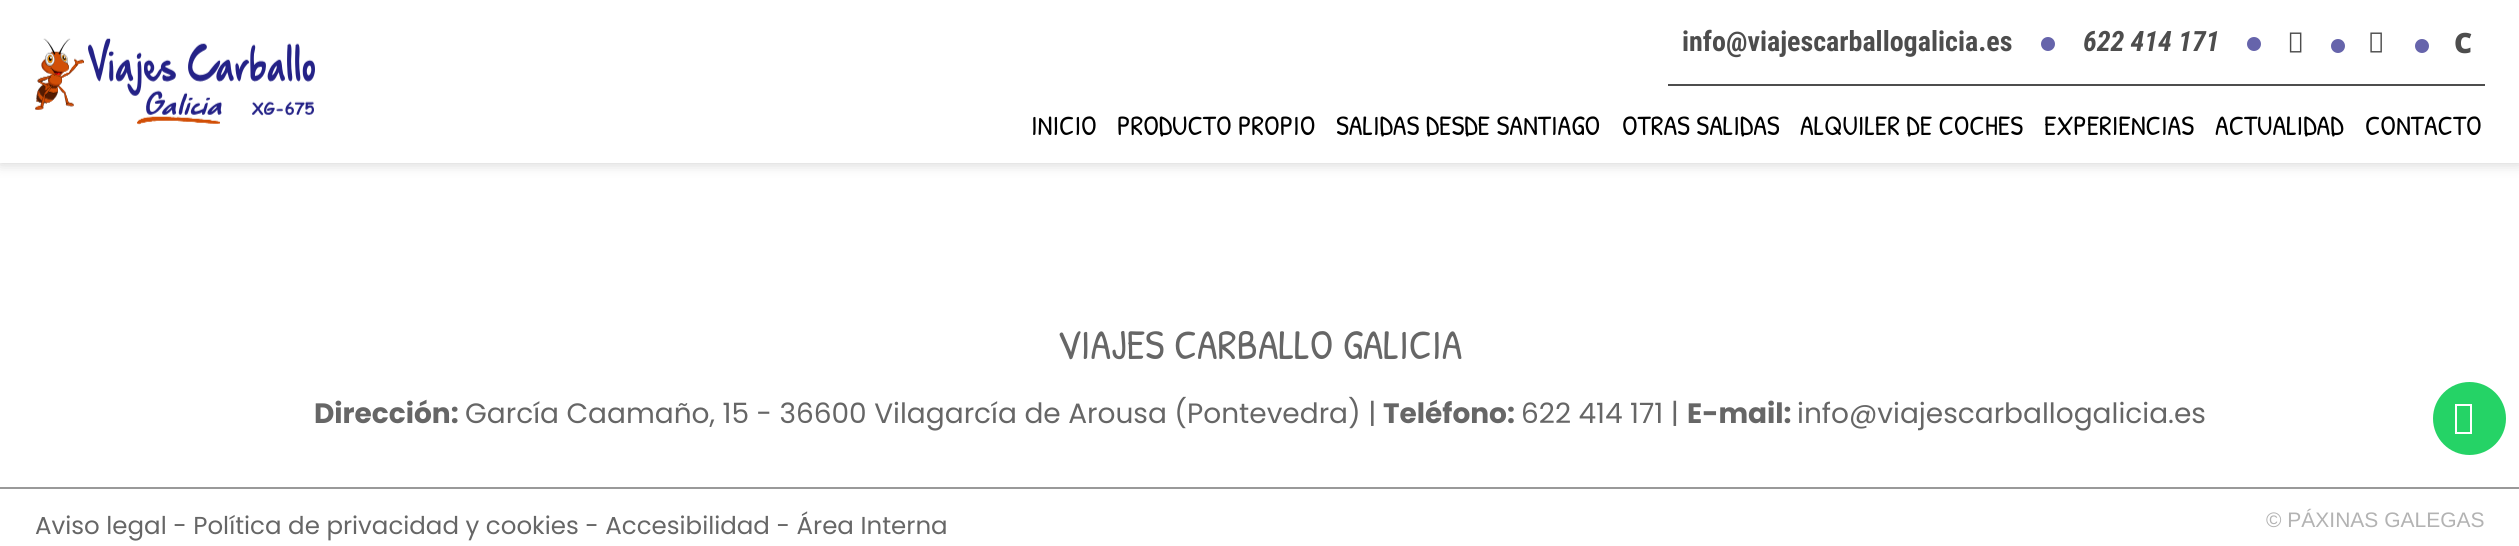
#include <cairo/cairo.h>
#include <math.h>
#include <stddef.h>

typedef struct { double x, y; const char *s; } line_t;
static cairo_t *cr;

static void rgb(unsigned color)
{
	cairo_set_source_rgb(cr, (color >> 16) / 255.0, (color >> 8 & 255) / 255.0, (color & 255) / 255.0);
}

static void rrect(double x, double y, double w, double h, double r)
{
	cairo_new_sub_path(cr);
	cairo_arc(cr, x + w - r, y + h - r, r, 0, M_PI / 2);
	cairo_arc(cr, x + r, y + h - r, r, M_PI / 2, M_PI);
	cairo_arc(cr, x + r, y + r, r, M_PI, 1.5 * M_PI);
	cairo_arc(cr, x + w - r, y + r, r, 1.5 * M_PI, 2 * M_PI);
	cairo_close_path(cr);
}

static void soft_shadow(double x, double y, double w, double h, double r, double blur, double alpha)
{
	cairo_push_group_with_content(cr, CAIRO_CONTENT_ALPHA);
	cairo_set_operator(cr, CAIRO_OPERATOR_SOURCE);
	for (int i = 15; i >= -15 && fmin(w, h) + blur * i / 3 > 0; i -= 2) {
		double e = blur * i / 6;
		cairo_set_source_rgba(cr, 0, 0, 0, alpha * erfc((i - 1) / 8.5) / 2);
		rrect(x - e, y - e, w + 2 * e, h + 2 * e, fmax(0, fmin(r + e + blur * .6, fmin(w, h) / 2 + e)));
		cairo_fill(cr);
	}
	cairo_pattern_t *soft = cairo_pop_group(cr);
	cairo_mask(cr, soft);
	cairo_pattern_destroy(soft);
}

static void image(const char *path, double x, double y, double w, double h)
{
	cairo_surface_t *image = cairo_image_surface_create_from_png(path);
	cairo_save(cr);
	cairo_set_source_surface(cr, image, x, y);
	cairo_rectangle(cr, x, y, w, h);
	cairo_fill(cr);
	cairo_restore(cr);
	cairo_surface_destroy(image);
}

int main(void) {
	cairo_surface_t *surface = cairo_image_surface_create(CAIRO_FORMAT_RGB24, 2519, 546);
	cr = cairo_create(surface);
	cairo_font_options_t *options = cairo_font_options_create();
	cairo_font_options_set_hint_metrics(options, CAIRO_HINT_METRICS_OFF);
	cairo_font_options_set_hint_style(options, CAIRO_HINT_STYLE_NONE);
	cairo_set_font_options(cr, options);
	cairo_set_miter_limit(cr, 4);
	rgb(0xffffff);
	cairo_paint(cr);
	rgb(0x000000);
	soft_shadow(0, 0, 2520, 163, 0, 7, 0.2);
	rgb(0xffffff);
	cairo_rectangle(cr, 0, 0, 2519, 163);
	cairo_fill(cr);
	image("img/1.png", 35, 38, 280, 87);
	rgb(0x4d4d4d);
	cairo_rectangle(cr, 1668, 84, 817, 2);
	cairo_fill(cr);
	rgb(0x6664ab);
	cairo_arc(cr, 2048, 44, 7, 0, 2 * M_PI);
	cairo_fill(cr);
	cairo_arc(cr, 2254, 44, 7, 0, 2 * M_PI);
	cairo_fill(cr);
	image("img/2.png", 2289, 32, 13, 21);
	cairo_arc(cr, 2338, 46, 7, 0, 2 * M_PI);
	cairo_fill(cr);
	image("img/3.png", 2370, 32, 12, 21);
	cairo_arc(cr, 2422, 46, 7, 0, 2 * M_PI);
	cairo_fill(cr);
	rgb(0x999999);
	cairo_rectangle(cr, 0, 487, 2519, 2);
	cairo_fill(cr);
	rgb(0x25d366);
	cairo_arc(cr, 2469.5, 418.5, 36.5, 0, 2 * M_PI);
	cairo_fill(cr);
	rgb(0xffffff);
	cairo_new_path(cr);
	cairo_move_to(cr, 2455, 434);
	cairo_line_to(cr, 2455, 404);
	cairo_line_to(cr, 2472, 404);
	cairo_line_to(cr, 2472, 434);
	cairo_close_path(cr);
	cairo_move_to(cr, 2457, 432);
	cairo_line_to(cr, 2470, 432);
	cairo_line_to(cr, 2470, 406);
	cairo_line_to(cr, 2457, 406);
	cairo_close_path(cr);
	cairo_fill(cr);
	cairo_select_font_face(cr, "Roboto Condensed", CAIRO_FONT_SLANT_NORMAL, CAIRO_FONT_WEIGHT_BOLD);
	cairo_set_font_size(cr, 28);
	rgb(0x4d4d4d);
	cairo_move_to(cr, 1682, 51);
	cairo_show_text(cr, "info@viajescarballogalicia.es");
	cairo_select_font_face(cr, "Roboto Condensed", CAIRO_FONT_SLANT_ITALIC, CAIRO_FONT_WEIGHT_BOLD);
	cairo_move_to(cr, 2083, 51);
	cairo_show_text(cr, "622 414 171");
	cairo_select_font_face(cr, "Noto Sans Black", CAIRO_FONT_SLANT_NORMAL, CAIRO_FONT_WEIGHT_NORMAL);
	cairo_move_to(cr, 2454, 53);
	cairo_show_text(cr, "C");
	cairo_select_font_face(cr, "Patrick Hand", CAIRO_FONT_SLANT_NORMAL, CAIRO_FONT_WEIGHT_NORMAL);
	rgb(0x000000);
	{
		static const line_t items[] = {
			{1031, 135, "INICIO"},
			{1117, 135, "PRODUCTO PROPIO"},
			{1336, 135, "SALIDAS DESDE SANTIAGO"},
			{1622, 135, "OTRAS SALIDAS"},
			{1800, 135, "ALQUILER DE COCHES"},
			{2044, 135, "EXPERIENCIAS"},
			{2215, 135, "ACTUALIDAD"},
			{2365, 135, "CONTACTO"},
		};
		for (size_t i = 0; i < sizeof items / sizeof *items; i++) {
			cairo_move_to(cr, items[i].x, items[i].y);
			cairo_show_text(cr, items[i].s);
		}
	}
	cairo_set_font_size(cr, 42);
	rgb(0x666666);
	cairo_move_to(cr, 1057, 359);
	cairo_show_text(cr, "VIAJES CARBALLO GALICIA");
	cairo_select_font_face(cr, "Poppins", CAIRO_FONT_SLANT_NORMAL, CAIRO_FONT_WEIGHT_BOLD);
	cairo_set_font_size(cr, 28);
	cairo_move_to(cr, 314, 423);
	cairo_show_text(cr, "Dirección:");
	cairo_select_font_face(cr, "Poppins", CAIRO_FONT_SLANT_NORMAL, CAIRO_FONT_WEIGHT_NORMAL);
	cairo_move_to(cr, 465, 423);
	cairo_show_text(cr, "García Caamaño, 15 - 36600 Vilagarcía de Arousa (Pontevedra) |");
	cairo_select_font_face(cr, "Poppins", CAIRO_FONT_SLANT_NORMAL, CAIRO_FONT_WEIGHT_BOLD);
	cairo_move_to(cr, 1383, 423);
	cairo_show_text(cr, "Teléfono:");
	cairo_select_font_face(cr, "Poppins", CAIRO_FONT_SLANT_NORMAL, CAIRO_FONT_WEIGHT_NORMAL);
	cairo_move_to(cr, 1521, 423);
	cairo_show_text(cr, "622 414 171 |");
	cairo_select_font_face(cr, "Poppins", CAIRO_FONT_SLANT_NORMAL, CAIRO_FONT_WEIGHT_BOLD);
	cairo_move_to(cr, 1687, 423);
	cairo_show_text(cr, "E-mail:");
	cairo_select_font_face(cr, "Poppins", CAIRO_FONT_SLANT_NORMAL, CAIRO_FONT_WEIGHT_NORMAL);
	cairo_move_to(cr, 1797, 423);
	cairo_show_text(cr, "info@viajescarballogalicia.es");
	cairo_set_font_size(cr, 24.5);
	cairo_move_to(cr, 35, 534);
	cairo_show_text(cr, "Aviso legal - Política de privacidad y cookies - Accesibilidad - Área Interna");
	cairo_select_font_face(cr, "Liberation Sans", CAIRO_FONT_SLANT_NORMAL, CAIRO_FONT_WEIGHT_NORMAL);
	cairo_set_font_size(cr, 21);
	rgb(0xb3b3b3);
	cairo_move_to(cr, 2266, 527);
	cairo_show_text(cr, "© PÁXINAS GALEGAS");
	cairo_surface_write_to_png(surface, "page.png");
	cairo_font_options_destroy(options);
	cairo_destroy(cr);
	cairo_surface_destroy(surface);
	return 0;
}
